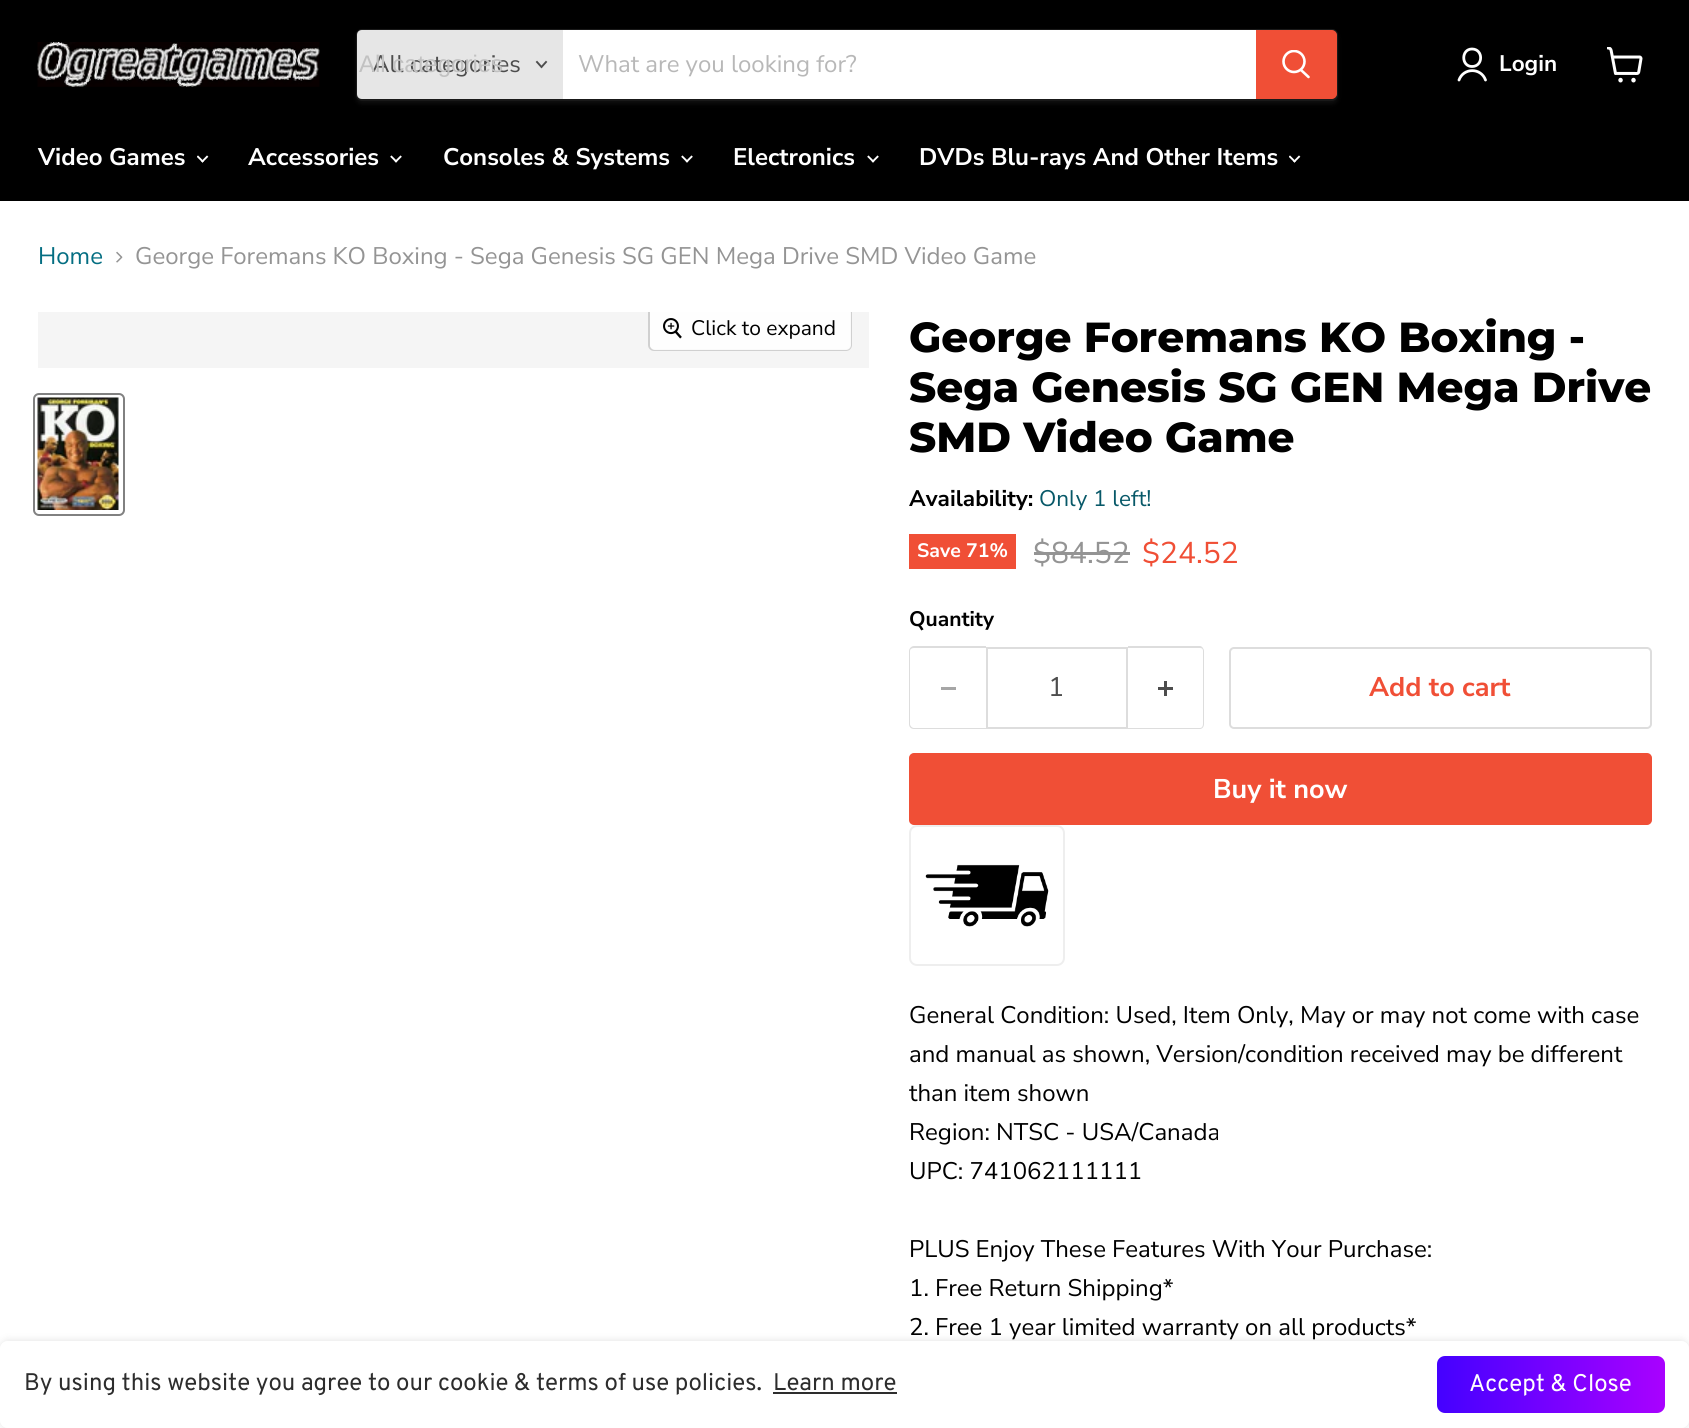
#include <cairo/cairo.h>
#include <math.h>
#include <stddef.h>

typedef struct { double x, y; const char *s; } line_t;
static cairo_t *cr;

static void rgb(unsigned color)
{
	cairo_set_source_rgb(cr, (color >> 16) / 255.0, (color >> 8 & 255) / 255.0, (color & 255) / 255.0);
}

static void rrect(double x, double y, double w, double h, double r)
{
	cairo_new_sub_path(cr);
	cairo_arc(cr, x + w - r, y + h - r, r, 0, M_PI / 2);
	cairo_arc(cr, x + r, y + h - r, r, M_PI / 2, M_PI);
	cairo_arc(cr, x + r, y + r, r, M_PI, 1.5 * M_PI);
	cairo_arc(cr, x + w - r, y + r, r, 1.5 * M_PI, 2 * M_PI);
	cairo_close_path(cr);
}

static void soft_shadow(double x, double y, double w, double h, double r, double blur, double alpha)
{
	cairo_push_group_with_content(cr, CAIRO_CONTENT_ALPHA);
	cairo_set_operator(cr, CAIRO_OPERATOR_SOURCE);
	for (int i = 15; i >= -15 && fmin(w, h) + blur * i / 3 > 0; i -= 2) {
		double e = blur * i / 6;
		cairo_set_source_rgba(cr, 0, 0, 0, alpha * erfc((i - 1) / 8.5) / 2);
		rrect(x - e, y - e, w + 2 * e, h + 2 * e, fmax(0, fmin(r + e + blur * .6, fmin(w, h) / 2 + e)));
		cairo_fill(cr);
	}
	cairo_pattern_t *soft = cairo_pop_group(cr);
	cairo_mask(cr, soft);
	cairo_pattern_destroy(soft);
}

static void image(const char *path, double x, double y, double w, double h)
{
	cairo_surface_t *image = cairo_image_surface_create_from_png(path);
	cairo_save(cr);
	cairo_set_source_surface(cr, image, x, y);
	cairo_rectangle(cr, x, y, w, h);
	cairo_fill(cr);
	cairo_restore(cr);
	cairo_surface_destroy(image);
}

int main(void) {
	cairo_surface_t *surface = cairo_image_surface_create(CAIRO_FORMAT_RGB24, 1689, 1428);
	cr = cairo_create(surface);
	cairo_font_options_t *options = cairo_font_options_create();
	cairo_font_options_set_hint_metrics(options, CAIRO_HINT_METRICS_OFF);
	cairo_font_options_set_hint_style(options, CAIRO_HINT_STYLE_NONE);
	cairo_set_font_options(cr, options);
	cairo_set_miter_limit(cr, 4);
	cairo_pattern_t *gradient;
	rgb(0xffffff);
	cairo_paint(cr);
	rgb(0x000000);
	cairo_rectangle(cr, 0, 0, 1689, 201);
	cairo_fill(cr);
	image("img/1.png", 37, 42, 283, 45);
	cairo_save(cr);
	cairo_set_fill_rule(cr, CAIRO_FILL_RULE_EVEN_ODD);
	cairo_new_path(cr);
	cairo_move_to(cr, 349, 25);
	cairo_line_to(cr, 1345, 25);
	cairo_line_to(cr, 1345, 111);
	cairo_line_to(cr, 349, 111);
	cairo_close_path(cr);
	cairo_move_to(cr, 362, 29);
	cairo_line_to(cr, 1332, 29);
	cairo_curve_to(cr, 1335.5, 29, 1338, 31.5, 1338, 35);
	cairo_line_to(cr, 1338, 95);
	cairo_curve_to(cr, 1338, 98.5, 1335.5, 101, 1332, 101);
	cairo_line_to(cr, 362, 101);
	cairo_curve_to(cr, 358.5, 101, 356, 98.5, 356, 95);
	cairo_line_to(cr, 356, 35);
	cairo_curve_to(cr, 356, 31.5, 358.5, 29, 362, 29);
	cairo_close_path(cr);
	cairo_clip(cr);
	rgb(0x808080);
	soft_shadow(356, 32, 982, 72, 6, 2, 0.11);
	cairo_restore(cr);
	rrect(357, 30, 980, 70, 5);
	cairo_set_source_rgba(cr, 0.502, 0.502, 0.502, 0.2);
	cairo_stroke(cr);
	rgb(0xe6e6e6);
	cairo_new_path(cr);
	cairo_move_to(cr, 362, 30);
	cairo_line_to(cr, 563, 30);
	cairo_line_to(cr, 563, 99);
	cairo_line_to(cr, 362, 99);
	cairo_curve_to(cr, 359, 99, 357, 97, 357, 94);
	cairo_line_to(cr, 357, 35);
	cairo_curve_to(cr, 357, 32, 359, 30, 362, 30);
	cairo_close_path(cr);
	cairo_fill(cr);
	cairo_new_path(cr);
	cairo_move_to(cr, 541.5, 67);
	cairo_line_to(cr, 546, 62);
	cairo_move_to(cr, 541.5, 67);
	cairo_line_to(cr, 537, 62);
	rgb(0x4d4d4d);
	cairo_set_line_width(cr, 1.9);
	cairo_set_line_cap(cr, CAIRO_LINE_CAP_SQUARE);
	cairo_stroke(cr);
	rgb(0xffffff);
	cairo_rectangle(cr, 563, 30, 693, 69);
	cairo_fill(cr);
	rgb(0xf04f36);
	cairo_new_path(cr);
	cairo_move_to(cr, 1257, 31);
	cairo_line_to(cr, 1332, 31);
	cairo_curve_to(cr, 1334, 31, 1336, 33, 1336, 35);
	cairo_line_to(cr, 1336, 94);
	cairo_curve_to(cr, 1336, 96, 1334, 98, 1332, 98);
	cairo_line_to(cr, 1257, 98);
	cairo_close_path(cr);
	cairo_fill_preserve(cr);
	cairo_set_line_width(cr, 2);
	cairo_set_line_cap(cr, CAIRO_LINE_CAP_BUTT);
	cairo_stroke(cr);
	cairo_new_path(cr);
	cairo_move_to(cr, 1308.5, 77);
	cairo_line_to(cr, 1301, 70);
	rgb(0xffffff);
	cairo_set_line_width(cr, 2.6);
	cairo_set_line_cap(cr, CAIRO_LINE_CAP_ROUND);
	cairo_stroke(cr);
	cairo_save(cr);
	cairo_rectangle(cr, 1281, 50, 30, 31);
	cairo_clip(cr);
	cairo_arc(cr, 1294, 61.5, 10.5, 0, 2 * M_PI);
	cairo_set_line_cap(cr, CAIRO_LINE_CAP_BUTT);
	cairo_stroke(cr);
	cairo_restore(cr);
	cairo_new_path(cr);
	cairo_move_to(cr, 1472, 66.5);
	cairo_curve_to(cr, 1483.5, 66.5, 1483.5, 49, 1472, 49);
	cairo_curve_to(cr, 1461, 49, 1461, 66.5, 1472, 66.5);
	cairo_close_path(cr);
	cairo_move_to(cr, 1485.5, 80);
	cairo_curve_to(cr, 1481, 67.5, 1463.5, 67.5, 1459, 80);
	cairo_set_line_width(cr, 2.8);
	cairo_set_line_join(cr, CAIRO_LINE_JOIN_ROUND);
	cairo_stroke(cr);
	image("img/2.png", 1607, 47, 36, 36);
	image("img/3.png", 197, 155, 12, 8);
	image("img/4.png", 390, 155, 12, 8);
	image("img/4.png", 681, 155, 12, 8);
	image("img/4.png", 867, 155, 12, 8);
	image("img/3.png", 1289, 155, 12, 8);
	image("img/5.png", 116, 251, 7, 12);
	rgb(0xf5f5f5);
	cairo_rectangle(cr, 38, 312, 831, 56);
	cairo_fill(cr);
	cairo_save(cr);
	cairo_rectangle(cr, 38, 312, 831, 56);
	cairo_clip(cr);
	rrect(649, 307, 202, 43, 5);
	rgb(0xd0d0d0);
	cairo_set_line_width(cr, 2);
	cairo_set_line_cap(cr, CAIRO_LINE_CAP_BUTT);
	cairo_set_line_join(cr, CAIRO_LINE_JOIN_MITER);
	cairo_stroke(cr);
	cairo_set_source_rgba(cr, 1, 1, 1, 0.9);
	rrect(650, 308, 201, 42, 5);
	cairo_fill(cr);
	cairo_restore(cr);
	image("img/6.png", 663, 318, 19, 21);
	rrect(34, 394, 90, 121, 5);
	rgb(0x818181);
	cairo_set_line_width(cr, 2);
	cairo_set_line_cap(cr, CAIRO_LINE_CAP_BUTT);
	cairo_set_line_join(cr, CAIRO_LINE_JOIN_MITER);
	cairo_stroke(cr);
	image("img/7.png", 37, 397, 82, 113);
	rgb(0xf04f36);
	cairo_rectangle(cr, 909, 534, 107, 35);
	cairo_fill(cr);
	rgb(0x949494);
	cairo_rectangle(cr, 1034, 552, 96, 3);
	cairo_fill(cr);
	rgb(0xdddddd);
	cairo_set_fill_rule(cr, CAIRO_FILL_RULE_EVEN_ODD);
	cairo_new_path(cr);
	cairo_move_to(cr, 914, 646);
	cairo_line_to(cr, 986, 646);
	cairo_line_to(cr, 986, 729);
	cairo_line_to(cr, 914, 729);
	cairo_curve_to(cr, 911, 729, 909, 727, 909, 724);
	cairo_line_to(cr, 909, 651);
	cairo_curve_to(cr, 909, 649, 911, 646, 914, 646);
	cairo_close_path(cr);
	cairo_move_to(cr, 914, 648);
	cairo_line_to(cr, 986, 648);
	cairo_line_to(cr, 986, 728);
	cairo_line_to(cr, 914, 728);
	cairo_curve_to(cr, 912, 728, 910, 726, 910, 724);
	cairo_line_to(cr, 910, 651);
	cairo_curve_to(cr, 910, 649, 912, 648, 914, 648);
	cairo_close_path(cr);
	cairo_fill(cr);
	rgb(0xa6a6a6);
	cairo_rectangle(cr, 941, 687, 15, 3);
	cairo_fill(cr);
	cairo_rectangle(cr, 987, 648, 140, 80);
	rgb(0xdddddd);
	cairo_stroke(cr);
	cairo_new_path(cr);
	cairo_move_to(cr, 1128, 646);
	cairo_line_to(cr, 1200, 646);
	cairo_curve_to(cr, 1202, 646, 1204, 649, 1204, 651);
	cairo_line_to(cr, 1204, 724);
	cairo_curve_to(cr, 1204, 727, 1202, 729, 1200, 729);
	cairo_line_to(cr, 1128, 729);
	cairo_close_path(cr);
	cairo_move_to(cr, 1128, 648);
	cairo_line_to(cr, 1200, 648);
	cairo_curve_to(cr, 1202, 648, 1203, 649, 1203, 651);
	cairo_line_to(cr, 1203, 724);
	cairo_curve_to(cr, 1203, 726, 1202, 728, 1200, 728);
	cairo_line_to(cr, 1128, 728);
	cairo_close_path(cr);
	cairo_fill(cr);
	image("img/8.png", 1158, 681, 15, 15);
	rrect(1230, 648, 421, 80, 4);
	cairo_stroke(cr);
	rgb(0xf04f36);
	rrect(910, 754, 741, 70, 4);
	cairo_fill_preserve(cr);
	cairo_stroke(cr);
	rrect(910, 826, 154, 139, 7);
	rgb(0xeeeeee);
	cairo_stroke(cr);
	image("img/9.png", 925, 864, 124, 63);
	cairo_save(cr);
	cairo_new_path(cr);
	cairo_move_to(cr, 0, 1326);
	cairo_line_to(cr, 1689, 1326);
	cairo_line_to(cr, 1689, 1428);
	cairo_line_to(cr, 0, 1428);
	cairo_close_path(cr);
	cairo_move_to(cr, 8, 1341);
	cairo_line_to(cr, 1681, 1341);
	cairo_curve_to(cr, 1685.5, 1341, 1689, 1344.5, 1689, 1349);
	cairo_line_to(cr, 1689, 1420);
	cairo_curve_to(cr, 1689, 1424.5, 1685.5, 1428, 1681, 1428);
	cairo_line_to(cr, 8, 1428);
	cairo_curve_to(cr, 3.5, 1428, 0, 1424.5, 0, 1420);
	cairo_line_to(cr, 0, 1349);
	cairo_curve_to(cr, 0, 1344.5, 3.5, 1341, 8, 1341);
	cairo_close_path(cr);
	cairo_clip(cr);
	rgb(0x000000);
	soft_shadow(0, 1341, 1689, 87, 8, 4.5, 0.12);
	cairo_restore(cr);
	rgb(0x2d2d2d);
	cairo_rectangle(cr, 773, 1392, 124, 2);
	cairo_fill(cr);
	gradient = cairo_pattern_create_linear(1437, 1385, 1665, 1385);
	cairo_pattern_add_color_stop_rgba(gradient, 0, 0.267, 0.004, 1, 1);
	cairo_pattern_add_color_stop_rgba(gradient, 1, 0.663, 0.004, 1, 1);
	cairo_set_source(cr, gradient);
	cairo_pattern_destroy(gradient);
	rrect(1437, 1356, 228, 57, 8);
	cairo_fill(cr);
	cairo_select_font_face(cr, "Nunito Sans", CAIRO_FONT_SLANT_NORMAL, CAIRO_FONT_WEIGHT_NORMAL);
	cairo_set_font_size(cr, 24);
	rgb(0x4d4d4d);
	cairo_move_to(cr, 372, 72);
	cairo_show_text(cr, "All categories");
	cairo_select_font_face(cr, "Liberation Sans", CAIRO_FONT_SLANT_NORMAL, CAIRO_FONT_WEIGHT_NORMAL);
	rgb(0xc1c1c1);
	cairo_move_to(cr, 359, 72);
	cairo_show_text(cr, "All categories");
	cairo_select_font_face(cr, "Nunito Sans", CAIRO_FONT_SLANT_NORMAL, CAIRO_FONT_WEIGHT_NORMAL);
	rgb(0xb8b8b8);
	cairo_move_to(cr, 578, 72);
	cairo_show_text(cr, "What are you looking for?");
	cairo_select_font_face(cr, "Nunito Sans", CAIRO_FONT_SLANT_NORMAL, CAIRO_FONT_WEIGHT_BOLD);
	cairo_set_font_size(cr, 22.5);
	rgb(0xffffff);
	cairo_move_to(cr, 1499, 71);
	cairo_show_text(cr, "Login");
	cairo_set_font_size(cr, 24);
	{
		static const line_t items[] = {
			{38, 165, "Video Games"},
			{248, 165, "Accessories"},
			{443, 165, "Consoles & Systems"},
			{733, 165, "Electronics"},
			{919, 165, "DVDs Blu-rays And Other Items"},
		};
		for (size_t i = 0; i < sizeof items / sizeof *items; i++) {
			cairo_move_to(cr, items[i].x, items[i].y);
			cairo_show_text(cr, items[i].s);
		}
	}
	cairo_select_font_face(cr, "Nunito Sans", CAIRO_FONT_SLANT_NORMAL, CAIRO_FONT_WEIGHT_NORMAL);
	rgb(0x046e82);
	cairo_move_to(cr, 38, 264);
	cairo_show_text(cr, "Home");
	rgb(0x949494);
	cairo_move_to(cr, 135, 264);
	cairo_show_text(cr, "George Foremans KO Boxing - Sega Genesis SG GEN Mega Drive SMD Video Game");
	cairo_set_font_size(cr, 21);
	rgb(0x000000);
	cairo_move_to(cr, 691, 335);
	cairo_show_text(cr, "Click to expand");
	cairo_select_font_face(cr, "Montserrat ExtraBold", CAIRO_FONT_SLANT_NORMAL, CAIRO_FONT_WEIGHT_NORMAL);
	cairo_set_font_size(cr, 42);
	{
		static const line_t items[] = {
			{909, 352, "George Foremans KO Boxing -"},
			{909, 402, "Sega Genesis SG GEN Mega Drive"},
			{909, 452, "SMD Video Game"},
		};
		for (size_t i = 0; i < sizeof items / sizeof *items; i++) {
			cairo_move_to(cr, items[i].x, items[i].y);
			cairo_show_text(cr, items[i].s);
		}
	}
	cairo_select_font_face(cr, "Nunito Sans", CAIRO_FONT_SLANT_NORMAL, CAIRO_FONT_WEIGHT_BOLD);
	cairo_set_font_size(cr, 22.5);
	cairo_move_to(cr, 909, 506);
	cairo_show_text(cr, "Availability:");
	cairo_select_font_face(cr, "Nunito Sans", CAIRO_FONT_SLANT_NORMAL, CAIRO_FONT_WEIGHT_NORMAL);
	rgb(0x075868);
	cairo_move_to(cr, 1039, 506);
	cairo_show_text(cr, "Only 1 left!");
	cairo_select_font_face(cr, "Nunito Sans", CAIRO_FONT_SLANT_NORMAL, CAIRO_FONT_WEIGHT_BOLD);
	cairo_set_font_size(cr, 19.5);
	rgb(0xffffff);
	cairo_move_to(cr, 917, 557);
	cairo_show_text(cr, "Save 71%");
	cairo_select_font_face(cr, "Nunito Sans", CAIRO_FONT_SLANT_NORMAL, CAIRO_FONT_WEIGHT_NORMAL);
	cairo_set_font_size(cr, 30);
	rgb(0x949494);
	cairo_move_to(cr, 1033, 563);
	cairo_show_text(cr, "$84.52");
	rgb(0xf04f36);
	cairo_move_to(cr, 1142, 563);
	cairo_show_text(cr, "$24.52");
	cairo_select_font_face(cr, "Nunito Sans", CAIRO_FONT_SLANT_NORMAL, CAIRO_FONT_WEIGHT_BOLD);
	cairo_set_font_size(cr, 21);
	rgb(0x000000);
	cairo_move_to(cr, 909, 626);
	cairo_show_text(cr, "Quantity");
	cairo_select_font_face(cr, "Nunito Sans", CAIRO_FONT_SLANT_NORMAL, CAIRO_FONT_WEIGHT_NORMAL);
	cairo_set_font_size(cr, 27);
	rgb(0x4d4d4d);
	cairo_move_to(cr, 1048, 696);
	cairo_show_text(cr, "1");
	cairo_select_font_face(cr, "Nunito Sans", CAIRO_FONT_SLANT_NORMAL, CAIRO_FONT_WEIGHT_BOLD);
	rgb(0xf04f36);
	cairo_move_to(cr, 1369, 696);
	cairo_show_text(cr, "Add to cart");
	rgb(0xffffff);
	cairo_move_to(cr, 1213, 798);
	cairo_show_text(cr, "Buy it now");
	cairo_select_font_face(cr, "Nunito Sans", CAIRO_FONT_SLANT_NORMAL, CAIRO_FONT_WEIGHT_NORMAL);
	cairo_set_font_size(cr, 24);
	rgb(0x000000);
	{
		static const line_t items[] = {
			{909, 1023, "General Condition: Used, Item Only, May or may not come with case"},
			{909, 1062, "and manual as shown, Version/condition received may be different"},
			{909, 1101, "than item shown"},
			{909, 1140, "Region: NTSC - USA/Canada"},
			{909, 1179, "UPC: 741062111111"},
			{909, 1257, "PLUS Enjoy These Features With Your Purchase:"},
			{909, 1296, "1. Free Return Shipping*"},
			{909, 1335, "2. Free 1 year limited warranty on all products*"},
		};
		for (size_t i = 0; i < sizeof items / sizeof *items; i++) {
			cairo_move_to(cr, items[i].x, items[i].y);
			cairo_show_text(cr, items[i].s);
		}
	}
	cairo_select_font_face(cr, "Overpass", CAIRO_FONT_SLANT_NORMAL, CAIRO_FONT_WEIGHT_NORMAL);
	rgb(0x2d2d2d);
	cairo_move_to(cr, 24, 1390);
	cairo_show_text(cr, "By using this website you agree to our cookie & terms of use policies.");
	cairo_move_to(cr, 773, 1390);
	cairo_show_text(cr, "Learn more");
	rgb(0xffffff);
	cairo_move_to(cr, 1469, 1391);
	cairo_show_text(cr, "Accept & Close");
	cairo_surface_write_to_png(surface, "page.png");
	cairo_font_options_destroy(options);
	cairo_destroy(cr);
	cairo_surface_destroy(surface);
	return 0;
}
